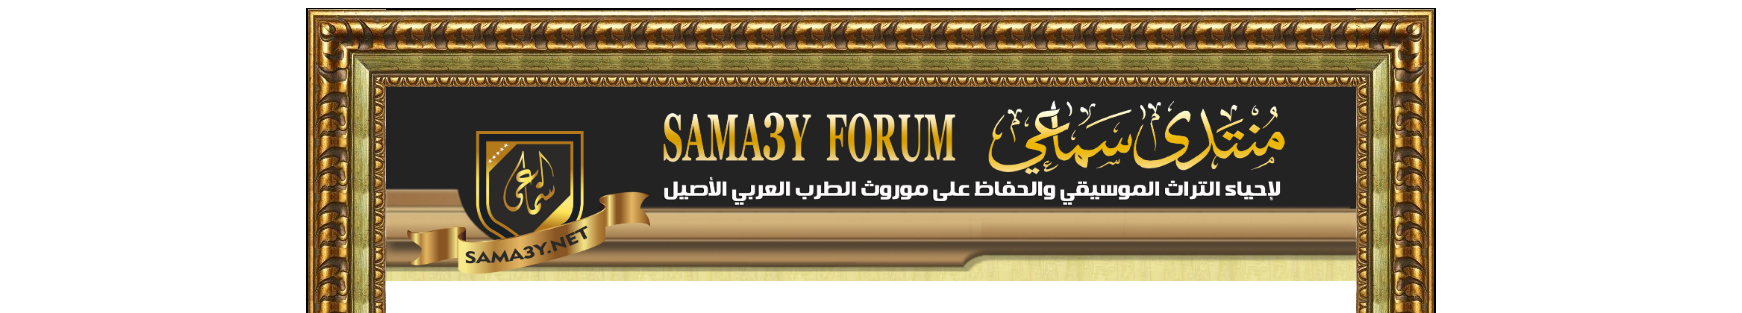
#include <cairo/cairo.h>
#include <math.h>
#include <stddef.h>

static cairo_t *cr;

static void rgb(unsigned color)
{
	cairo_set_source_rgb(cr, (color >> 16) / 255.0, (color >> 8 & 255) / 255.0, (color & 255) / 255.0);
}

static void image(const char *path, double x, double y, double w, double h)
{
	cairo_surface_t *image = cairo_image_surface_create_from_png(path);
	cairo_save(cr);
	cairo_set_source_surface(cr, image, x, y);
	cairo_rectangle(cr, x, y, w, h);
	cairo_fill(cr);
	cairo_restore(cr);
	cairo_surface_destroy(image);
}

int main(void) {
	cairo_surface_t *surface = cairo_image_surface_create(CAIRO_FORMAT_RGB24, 1742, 313);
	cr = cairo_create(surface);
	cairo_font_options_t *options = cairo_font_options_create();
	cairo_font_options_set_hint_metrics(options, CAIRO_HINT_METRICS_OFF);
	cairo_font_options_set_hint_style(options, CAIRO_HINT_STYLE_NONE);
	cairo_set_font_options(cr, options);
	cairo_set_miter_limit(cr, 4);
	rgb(0xffffff);
	cairo_paint(cr);
	image("img/1.png", 306, 8, 80, 79);
	image("img/2.png", 386, 8, 970, 79);
	image("img/3.png", 1356, 8, 80, 79);
	image("img/4.png", 306, 87, 80, 226);
	image("img/5.png", 386, 87, 970, 194);
	image("img/6.png", 1356, 87, 80, 226);
	cairo_surface_write_to_png(surface, "page.png");
	cairo_font_options_destroy(options);
	cairo_destroy(cr);
	cairo_surface_destroy(surface);
	return 0;
}
